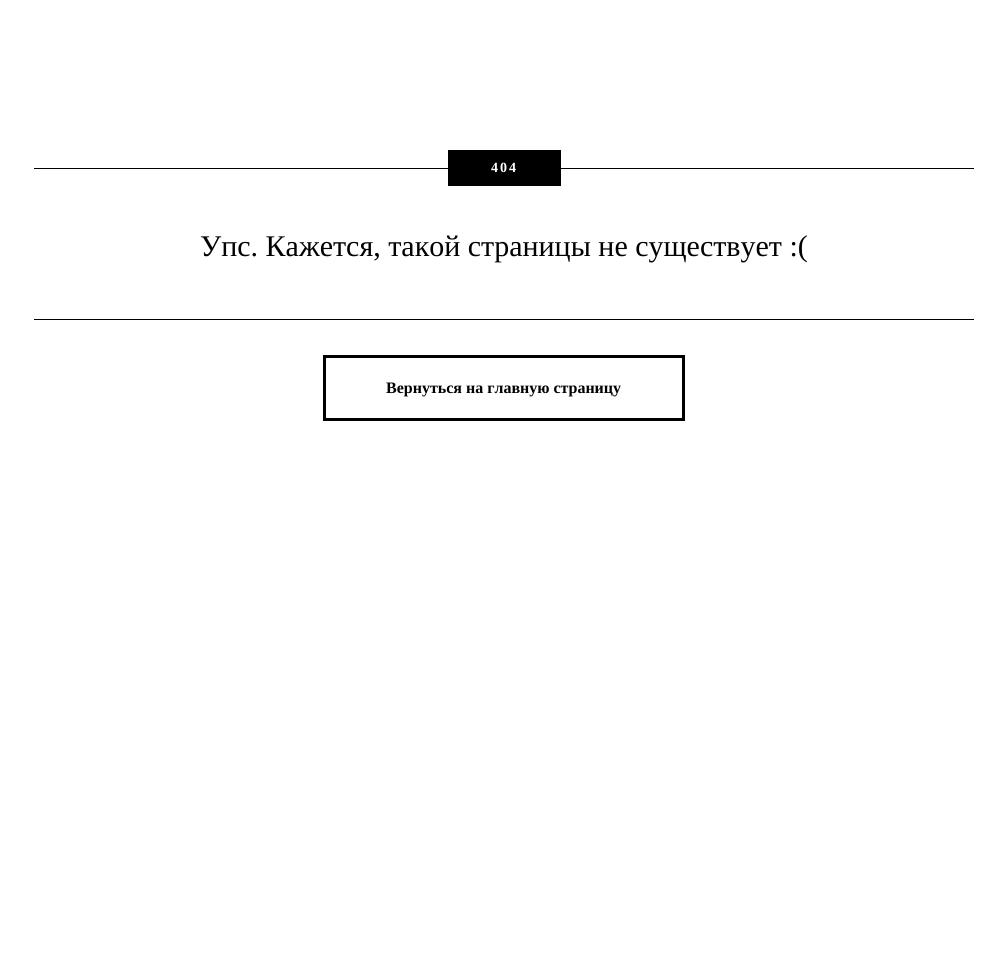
#include <cairo/cairo.h>
#include <math.h>
#include <stddef.h>

typedef struct { double x, y, w, h; unsigned color; } box_t;
static cairo_t *cr;

static void rgb(unsigned color)
{
	cairo_set_source_rgb(cr, (color >> 16) / 255.0, (color >> 8 & 255) / 255.0, (color & 255) / 255.0);
}

static void tracked(double x, double y, const char *s, double letter, double word)
{
	cairo_move_to(cr, x, y);
	while (*s) {
		char ch[5] = {0};
		int n = 0;
		do ch[n++] = *s++; while ((*s & 0xC0) == 0x80);
		cairo_show_text(cr, ch);
		cairo_rel_move_to(cr, letter + word * (*ch == ' '), 0);
	}
}

int main(void) {
	cairo_surface_t *surface = cairo_image_surface_create(CAIRO_FORMAT_RGB24, 1008, 964);
	cr = cairo_create(surface);
	cairo_font_options_t *options = cairo_font_options_create();
	cairo_font_options_set_hint_metrics(options, CAIRO_HINT_METRICS_OFF);
	cairo_font_options_set_hint_style(options, CAIRO_HINT_STYLE_NONE);
	cairo_set_font_options(cr, options);
	cairo_set_miter_limit(cr, 4);
	rgb(0xffffff);
	cairo_paint(cr);
	{
		static const box_t items[] = {
			{34, 168, 940, 1, 0x000000},
			{448, 150, 113, 36, 0x000000},
			{34, 319, 940, 1, 0x000000},
		};
		for (size_t i = 0; i < sizeof items / sizeof *items; i++) {
			rgb(items[i].color);
			cairo_rectangle(cr, items[i].x, items[i].y, items[i].w, items[i].h);
			cairo_fill(cr);
		}
	}
	cairo_rectangle(cr, 324.5, 356.5, 359, 63);
	cairo_set_line_width(cr, 3);
	cairo_stroke(cr);
	cairo_select_font_face(cr, "Liberation Serif", CAIRO_FONT_SLANT_NORMAL, CAIRO_FONT_WEIGHT_BOLD);
	cairo_set_font_size(cr, 14);
	rgb(0xffffff);
	tracked(491, 172, "404", 2, 0);
	cairo_select_font_face(cr, "Liberation Serif", CAIRO_FONT_SLANT_NORMAL, CAIRO_FONT_WEIGHT_NORMAL);
	cairo_set_font_size(cr, 30);
	rgb(0x000000);
	cairo_move_to(cr, 200, 256);
	cairo_show_text(cr, "Упс. Кажется, такой страницы не существует :(");
	cairo_select_font_face(cr, "Liberation Serif", CAIRO_FONT_SLANT_NORMAL, CAIRO_FONT_WEIGHT_BOLD);
	cairo_set_font_size(cr, 16);
	cairo_move_to(cr, 386, 393);
	cairo_show_text(cr, "Вернуться на главную страницу");
	cairo_surface_write_to_png(surface, "page.png");
	cairo_font_options_destroy(options);
	cairo_destroy(cr);
	cairo_surface_destroy(surface);
	return 0;
}
